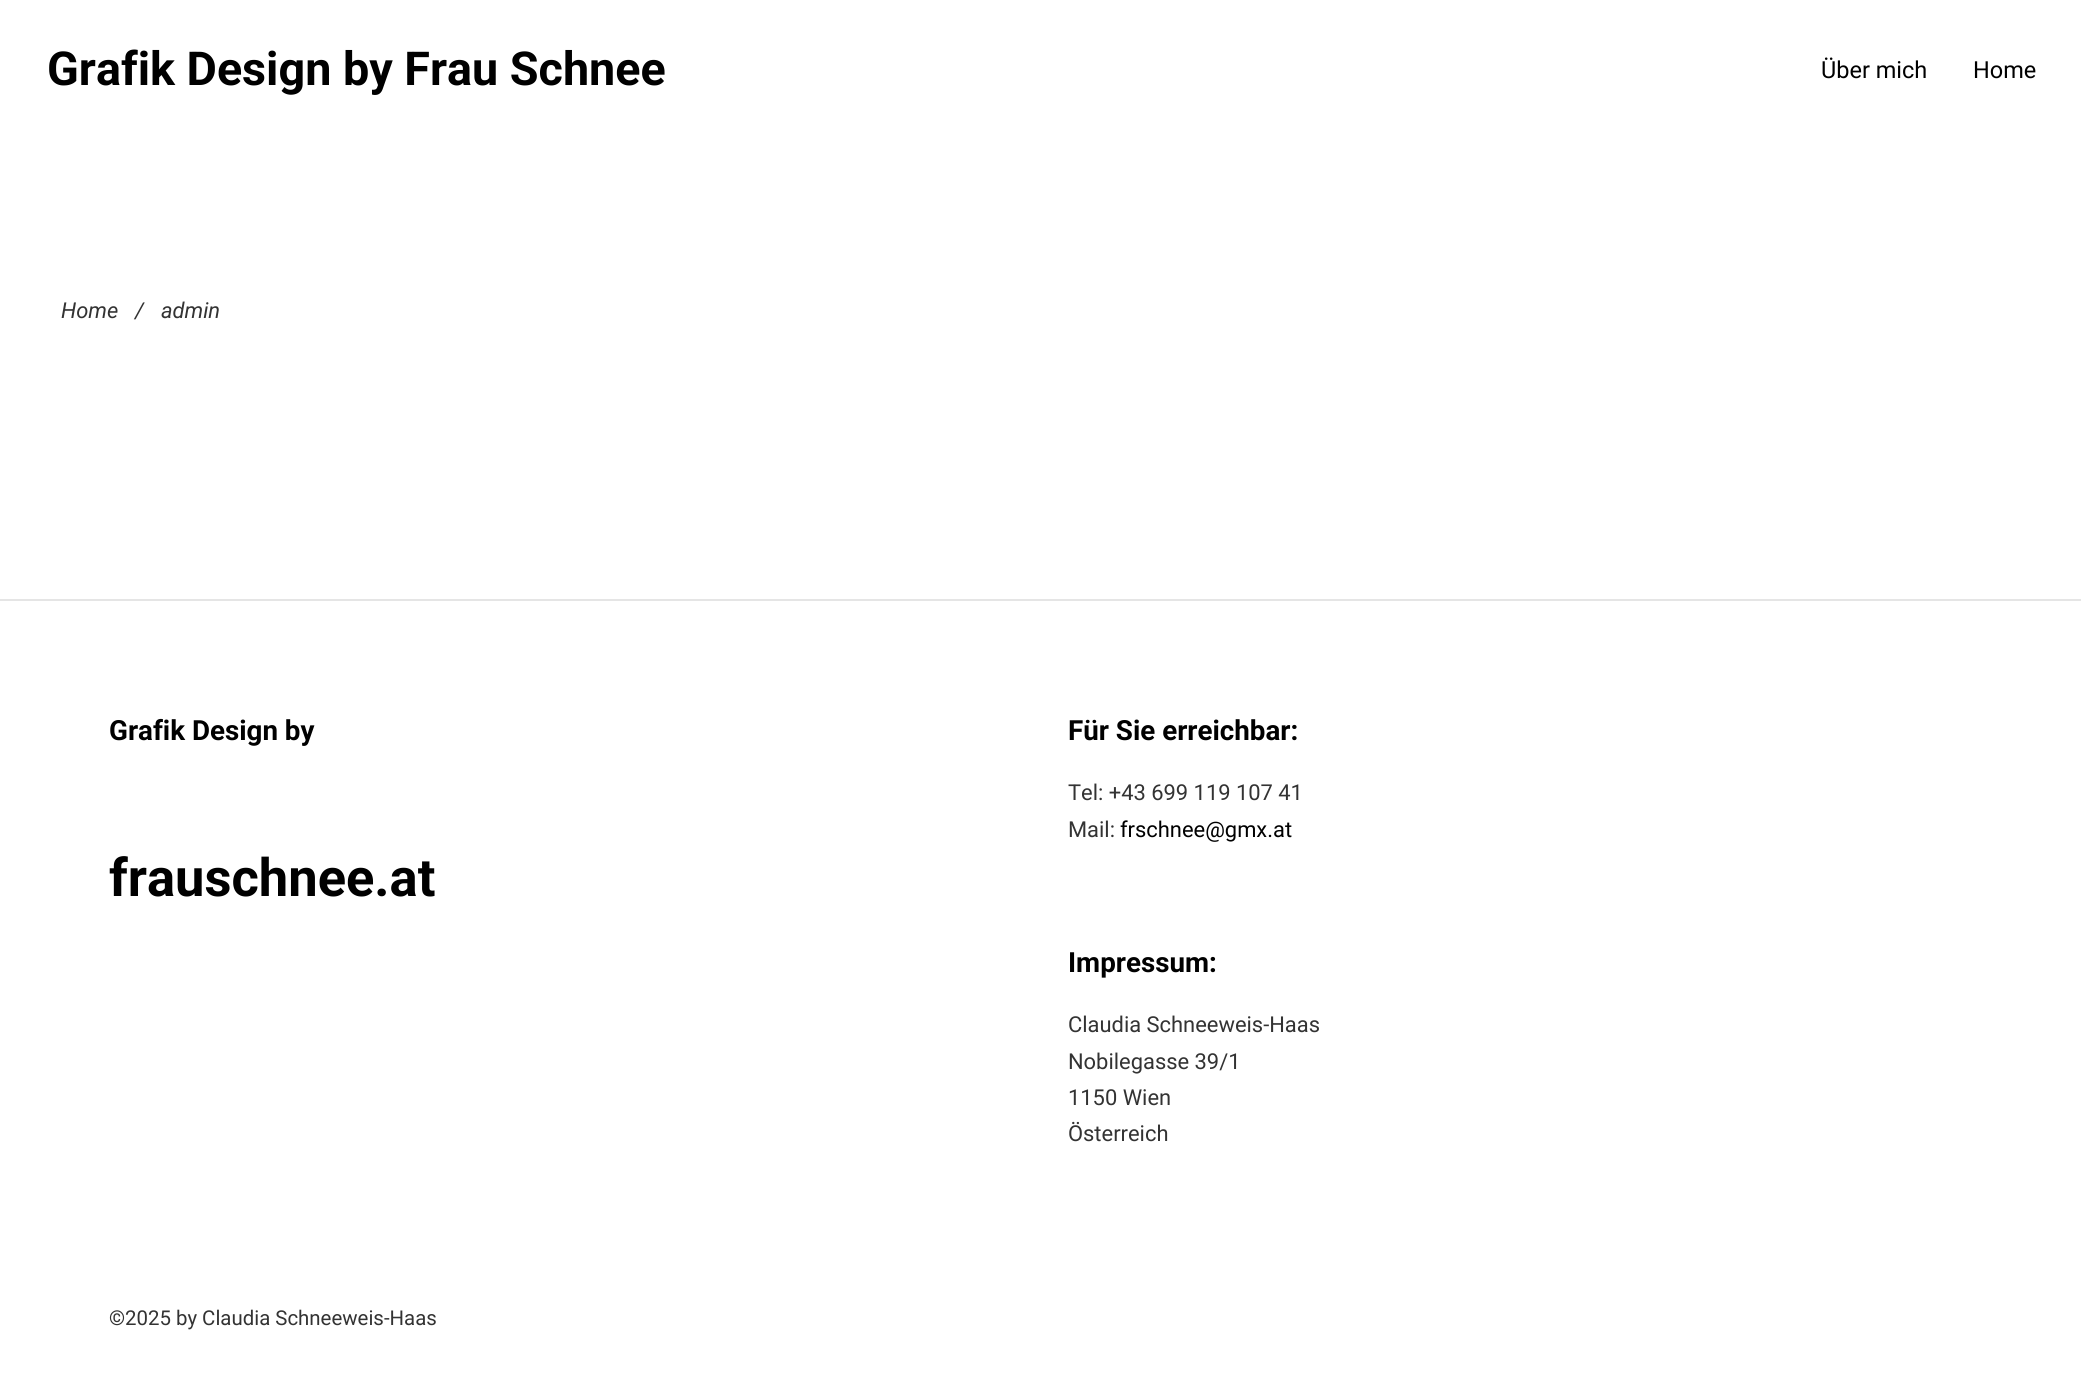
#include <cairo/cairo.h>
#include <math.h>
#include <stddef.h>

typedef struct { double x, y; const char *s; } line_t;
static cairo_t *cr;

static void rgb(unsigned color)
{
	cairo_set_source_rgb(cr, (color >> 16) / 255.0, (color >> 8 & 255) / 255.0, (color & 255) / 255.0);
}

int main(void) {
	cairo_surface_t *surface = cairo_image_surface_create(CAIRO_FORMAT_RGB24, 2081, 1375);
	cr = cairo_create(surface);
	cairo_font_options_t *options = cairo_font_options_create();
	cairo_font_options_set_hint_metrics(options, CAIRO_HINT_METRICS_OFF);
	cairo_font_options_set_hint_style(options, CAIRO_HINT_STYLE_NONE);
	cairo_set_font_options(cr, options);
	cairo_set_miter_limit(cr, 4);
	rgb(0xffffff);
	cairo_paint(cr);
	rgb(0xe5e5e5);
	cairo_rectangle(cr, 0, 599, 2081, 2);
	cairo_fill(cr);
	cairo_select_font_face(cr, "Roboto", CAIRO_FONT_SLANT_NORMAL, CAIRO_FONT_WEIGHT_BOLD);
	cairo_set_font_size(cr, 46.7);
	rgb(0x000000);
	cairo_move_to(cr, 47, 85);
	cairo_show_text(cr, "Grafik Design by Frau Schnee");
	cairo_select_font_face(cr, "Roboto", CAIRO_FONT_SLANT_NORMAL, CAIRO_FONT_WEIGHT_NORMAL);
	cairo_set_font_size(cr, 23.5);
	cairo_move_to(cr, 1821, 78);
	cairo_show_text(cr, "Über mich");
	cairo_move_to(cr, 1973, 78);
	cairo_show_text(cr, "Home");
	cairo_select_font_face(cr, "Roboto", CAIRO_FONT_SLANT_ITALIC, CAIRO_FONT_WEIGHT_NORMAL);
	cairo_set_font_size(cr, 21.9);
	rgb(0x333333);
	{
		static const line_t items[] = {
			{61, 318, "Home"},
			{135, 318, "/"},
			{161, 318, "admin"},
		};
		for (size_t i = 0; i < sizeof items / sizeof *items; i++) {
			cairo_move_to(cr, items[i].x, items[i].y);
			cairo_show_text(cr, items[i].s);
		}
	}
	cairo_select_font_face(cr, "Roboto", CAIRO_FONT_SLANT_NORMAL, CAIRO_FONT_WEIGHT_BOLD);
	cairo_set_font_size(cr, 27.75);
	rgb(0x000000);
	cairo_move_to(cr, 109, 740);
	cairo_show_text(cr, "Grafik Design by");
	cairo_set_font_size(cr, 52.5);
	cairo_move_to(cr, 109, 896);
	cairo_show_text(cr, "frauschnee.at");
	cairo_set_font_size(cr, 27.75);
	cairo_move_to(cr, 1068, 740);
	cairo_show_text(cr, "Für Sie erreichbar:");
	cairo_select_font_face(cr, "Roboto", CAIRO_FONT_SLANT_NORMAL, CAIRO_FONT_WEIGHT_NORMAL);
	cairo_set_font_size(cr, 21.9);
	rgb(0x333333);
	cairo_move_to(cr, 1068, 800);
	cairo_show_text(cr, "Tel: +43 699 119 107 41");
	cairo_move_to(cr, 1068, 837);
	cairo_show_text(cr, "Mail:");
	rgb(0x000000);
	cairo_move_to(cr, 1120, 837);
	cairo_show_text(cr, "frschnee@gmx.at");
	cairo_select_font_face(cr, "Roboto", CAIRO_FONT_SLANT_NORMAL, CAIRO_FONT_WEIGHT_BOLD);
	cairo_set_font_size(cr, 27.75);
	cairo_move_to(cr, 1068, 972);
	cairo_show_text(cr, "Impressum:");
	cairo_select_font_face(cr, "Roboto", CAIRO_FONT_SLANT_NORMAL, CAIRO_FONT_WEIGHT_NORMAL);
	cairo_set_font_size(cr, 21.9);
	rgb(0x333333);
	{
		static const line_t items[] = {
			{1068, 1032, "Claudia Schneeweis-Haas"},
			{1068, 1069, "Nobilegasse 39/1"},
			{1068, 1105, "1150 Wien"},
			{1068, 1141, "Österreich"},
		};
		for (size_t i = 0; i < sizeof items / sizeof *items; i++) {
			cairo_move_to(cr, items[i].x, items[i].y);
			cairo_show_text(cr, items[i].s);
		}
	}
	cairo_set_font_size(cr, 20.4);
	cairo_move_to(cr, 109, 1325);
	cairo_show_text(cr, "©2025 by Claudia Schneeweis-Haas");
	cairo_surface_write_to_png(surface, "page.png");
	cairo_font_options_destroy(options);
	cairo_destroy(cr);
	cairo_surface_destroy(surface);
	return 0;
}
